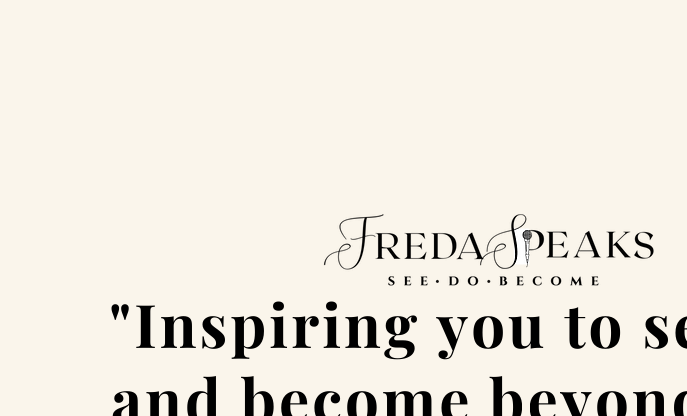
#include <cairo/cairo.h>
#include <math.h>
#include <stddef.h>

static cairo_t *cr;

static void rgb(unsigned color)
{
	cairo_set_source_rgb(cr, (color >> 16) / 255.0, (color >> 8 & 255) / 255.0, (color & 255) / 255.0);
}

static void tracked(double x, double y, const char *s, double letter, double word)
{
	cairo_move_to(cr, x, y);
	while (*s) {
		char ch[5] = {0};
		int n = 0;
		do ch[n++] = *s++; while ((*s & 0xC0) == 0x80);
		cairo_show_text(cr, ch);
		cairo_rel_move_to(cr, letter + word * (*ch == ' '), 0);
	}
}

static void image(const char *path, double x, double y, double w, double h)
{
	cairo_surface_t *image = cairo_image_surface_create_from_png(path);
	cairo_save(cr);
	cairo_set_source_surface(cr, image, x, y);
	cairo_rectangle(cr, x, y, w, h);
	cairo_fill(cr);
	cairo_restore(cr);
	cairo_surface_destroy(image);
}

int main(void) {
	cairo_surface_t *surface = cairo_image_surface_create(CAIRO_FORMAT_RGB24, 687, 416);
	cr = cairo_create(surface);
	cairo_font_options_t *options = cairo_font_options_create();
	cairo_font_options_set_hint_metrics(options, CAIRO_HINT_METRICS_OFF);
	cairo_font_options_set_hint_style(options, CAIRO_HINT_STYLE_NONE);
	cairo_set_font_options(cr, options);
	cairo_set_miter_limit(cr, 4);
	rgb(0xfaf5eb);
	cairo_paint(cr);
	image("img/1.png", 323, 214, 331, 72);
	cairo_select_font_face(cr, "Playfair Display", CAIRO_FONT_SLANT_NORMAL, CAIRO_FONT_WEIGHT_BOLD);
	cairo_set_font_size(cr, 60);
	rgb(0x000000);
	tracked(109, 348, "\"Inspiring you to se", 3, 0);
	tracked(111, 423, "and become beyond", 3, 0);
	cairo_surface_write_to_png(surface, "page.png");
	cairo_font_options_destroy(options);
	cairo_destroy(cr);
	cairo_surface_destroy(surface);
	return 0;
}
